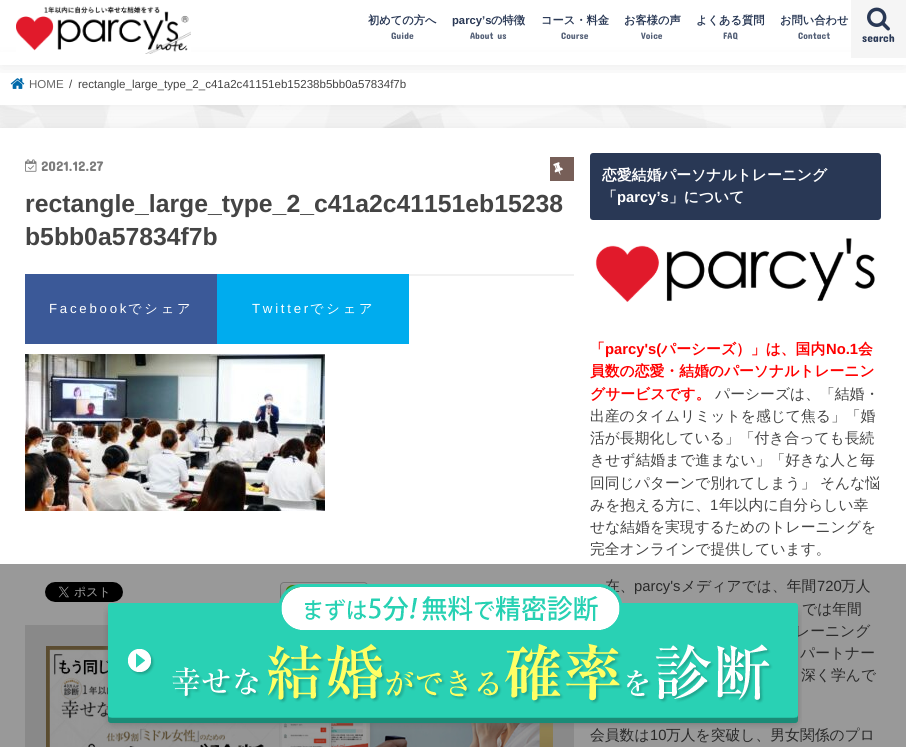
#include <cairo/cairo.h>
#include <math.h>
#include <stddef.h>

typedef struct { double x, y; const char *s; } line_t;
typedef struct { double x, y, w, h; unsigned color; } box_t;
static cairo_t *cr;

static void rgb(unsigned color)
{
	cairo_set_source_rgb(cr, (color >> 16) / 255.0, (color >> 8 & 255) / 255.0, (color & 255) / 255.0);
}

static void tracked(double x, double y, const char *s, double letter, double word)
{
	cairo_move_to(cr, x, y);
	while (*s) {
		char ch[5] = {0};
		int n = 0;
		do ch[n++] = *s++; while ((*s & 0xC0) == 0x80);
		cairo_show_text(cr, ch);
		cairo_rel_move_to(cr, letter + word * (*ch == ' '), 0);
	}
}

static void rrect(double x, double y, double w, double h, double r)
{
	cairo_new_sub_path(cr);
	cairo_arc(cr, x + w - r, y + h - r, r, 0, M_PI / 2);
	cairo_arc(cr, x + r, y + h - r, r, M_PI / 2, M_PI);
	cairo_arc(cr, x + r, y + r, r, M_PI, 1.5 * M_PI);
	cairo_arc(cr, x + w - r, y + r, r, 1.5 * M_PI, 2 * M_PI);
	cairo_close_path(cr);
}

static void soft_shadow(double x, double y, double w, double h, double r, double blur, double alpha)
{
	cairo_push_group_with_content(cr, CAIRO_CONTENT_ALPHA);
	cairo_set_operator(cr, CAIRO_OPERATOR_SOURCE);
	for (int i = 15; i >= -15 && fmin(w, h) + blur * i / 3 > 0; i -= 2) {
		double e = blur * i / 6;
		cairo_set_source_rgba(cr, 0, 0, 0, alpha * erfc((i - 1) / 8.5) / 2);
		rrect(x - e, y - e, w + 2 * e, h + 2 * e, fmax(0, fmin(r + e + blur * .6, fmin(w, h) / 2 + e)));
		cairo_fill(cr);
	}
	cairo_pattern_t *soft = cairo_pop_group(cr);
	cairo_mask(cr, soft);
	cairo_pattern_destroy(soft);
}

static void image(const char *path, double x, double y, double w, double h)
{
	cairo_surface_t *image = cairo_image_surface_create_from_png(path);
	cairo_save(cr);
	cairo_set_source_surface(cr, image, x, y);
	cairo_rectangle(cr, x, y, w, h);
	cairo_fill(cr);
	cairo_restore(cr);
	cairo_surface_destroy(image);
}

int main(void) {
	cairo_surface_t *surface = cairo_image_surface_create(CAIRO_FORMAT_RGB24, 906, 747);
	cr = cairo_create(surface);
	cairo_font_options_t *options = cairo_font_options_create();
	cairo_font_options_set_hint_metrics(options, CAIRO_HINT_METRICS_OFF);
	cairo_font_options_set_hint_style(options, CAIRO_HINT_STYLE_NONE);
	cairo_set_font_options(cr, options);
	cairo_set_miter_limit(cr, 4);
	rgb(0xffffff);
	cairo_paint(cr);
	image("img/1.png", 0, 105, 906, 23);
	rgb(0x000000);
	soft_shadow(0, 65, 906, 40, 0, 10, 0.1);
	rgb(0xffffff);
	cairo_rectangle(cr, 0, 52, 906, 53);
	cairo_fill(cr);
	image("img/4.png", 10, 78, 15, 11);
	cairo_save(cr);
	cairo_rectangle(cr, 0, 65, 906, 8);
	cairo_clip(cr);
	rgb(0x000000);
	soft_shadow(0, 0, 906, 65, 0, 10, 0.1);
	cairo_restore(cr);
	image("img/2.png", 16, 6, 175, 48);
	rgb(0xf5f5f5);
	cairo_rectangle(cr, 851, 0, 55, 58);
	cairo_fill(cr);
	image("img/3.png", 867, 7, 23, 24);
	rgb(0x000000);
	soft_shadow(0, 128, 906, 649, 0, 10, 0.1);
	rgb(0xffffff);
	cairo_rectangle(cr, 0, 128, 906, 436);
	cairo_fill(cr);
	rgb(0x999999);
	cairo_rectangle(cr, 0, 564, 906, 183);
	cairo_fill(cr);
	image("img/5.png", 25, 159, 12, 13);
	rgb(0x775f58);
	cairo_rectangle(cr, 550, 157, 24, 24);
	cairo_fill(cr);
	image("img/6.png", 553, 162, 10, 13);
	{
		static const box_t items[] = {
			{409, 274, 165, 2, 0xf1f1f1},
			{25, 274, 192, 70, 0x3b5998},
			{217, 274, 192, 70, 0x00acee},
		};
		for (size_t i = 0; i < sizeof items / sizeof *items; i++) {
			rgb(items[i].color);
			cairo_rectangle(cr, items[i].x, items[i].y, items[i].w, items[i].h);
			cairo_fill(cr);
		}
	}
	image("img/7.png", 25, 354, 300, 157);
	image("img/8.png", 45, 582, 78, 20);
	image("img/9.png", 280, 582, 88, 20);
	rgb(0x898989);
	cairo_rectangle(cr, 25, 625, 549, 122);
	cairo_fill(cr);
	image("img/10.png", 46, 646, 507, 101);
	rgb(0x293855);
	rrect(590, 153, 291, 67, 3);
	cairo_fill(cr);
	image("img/11.png", 595, 238, 280, 64);
	cairo_select_font_face(cr, "WenQuanYi Zen Hei", CAIRO_FONT_SLANT_NORMAL, CAIRO_FONT_WEIGHT_BOLD);
	cairo_set_font_size(cr, 11.25);
	cairo_move_to(cr, 368, 24);
	cairo_show_text(cr, "初めての方へ");
	cairo_select_font_face(cr, "Concert One", CAIRO_FONT_SLANT_NORMAL, CAIRO_FONT_WEIGHT_NORMAL);
	cairo_set_font_size(cr, 9.5);
	rgb(0x546077);
	cairo_move_to(cr, 391, 39);
	cairo_show_text(cr, "Guide");
	cairo_select_font_face(cr, "Liberation Sans", CAIRO_FONT_SLANT_NORMAL, CAIRO_FONT_WEIGHT_BOLD);
	cairo_set_font_size(cr, 11.25);
	rgb(0x293855);
	cairo_move_to(cr, 452, 24);
	cairo_show_text(cr, "parcy’s");
	cairo_select_font_face(cr, "WenQuanYi Zen Hei", CAIRO_FONT_SLANT_NORMAL, CAIRO_FONT_WEIGHT_BOLD);
	cairo_move_to(cr, 491, 24);
	cairo_show_text(cr, "の特徴");
	cairo_select_font_face(cr, "Concert One", CAIRO_FONT_SLANT_NORMAL, CAIRO_FONT_WEIGHT_NORMAL);
	cairo_set_font_size(cr, 9.5);
	rgb(0x546077);
	cairo_move_to(cr, 470, 39);
	cairo_show_text(cr, "About us");
	cairo_select_font_face(cr, "WenQuanYi Zen Hei", CAIRO_FONT_SLANT_NORMAL, CAIRO_FONT_WEIGHT_BOLD);
	cairo_set_font_size(cr, 11.25);
	rgb(0x293855);
	cairo_move_to(cr, 541, 24);
	cairo_show_text(cr, "コース・料金");
	cairo_select_font_face(cr, "Concert One", CAIRO_FONT_SLANT_NORMAL, CAIRO_FONT_WEIGHT_NORMAL);
	cairo_set_font_size(cr, 9.5);
	rgb(0x546077);
	cairo_move_to(cr, 561, 39);
	cairo_show_text(cr, "Course");
	cairo_select_font_face(cr, "WenQuanYi Zen Hei", CAIRO_FONT_SLANT_NORMAL, CAIRO_FONT_WEIGHT_BOLD);
	cairo_set_font_size(cr, 11.25);
	rgb(0x293855);
	cairo_move_to(cr, 624, 24);
	cairo_show_text(cr, "お客様の声");
	cairo_select_font_face(cr, "Concert One", CAIRO_FONT_SLANT_NORMAL, CAIRO_FONT_WEIGHT_NORMAL);
	cairo_set_font_size(cr, 9.5);
	rgb(0x546077);
	cairo_move_to(cr, 641, 39);
	cairo_show_text(cr, "Voice");
	cairo_select_font_face(cr, "WenQuanYi Zen Hei", CAIRO_FONT_SLANT_NORMAL, CAIRO_FONT_WEIGHT_BOLD);
	cairo_set_font_size(cr, 11.25);
	rgb(0x293855);
	cairo_move_to(cr, 696, 24);
	cairo_show_text(cr, "よくある質問");
	cairo_select_font_face(cr, "Concert One", CAIRO_FONT_SLANT_NORMAL, CAIRO_FONT_WEIGHT_NORMAL);
	cairo_set_font_size(cr, 9.5);
	rgb(0x546077);
	cairo_move_to(cr, 723, 39);
	cairo_show_text(cr, "FAQ");
	cairo_select_font_face(cr, "WenQuanYi Zen Hei", CAIRO_FONT_SLANT_NORMAL, CAIRO_FONT_WEIGHT_BOLD);
	cairo_set_font_size(cr, 11.25);
	rgb(0x293855);
	cairo_move_to(cr, 780, 24);
	cairo_show_text(cr, "お問い合わせ");
	cairo_select_font_face(cr, "Concert One", CAIRO_FONT_SLANT_NORMAL, CAIRO_FONT_WEIGHT_NORMAL);
	cairo_set_font_size(cr, 9.5);
	rgb(0x546077);
	cairo_move_to(cr, 798, 39);
	cairo_show_text(cr, "Contact");
	cairo_set_font_size(cr, 11.55);
	rgb(0x293855);
	cairo_move_to(cr, 862, 42);
	cairo_show_text(cr, "search");
	cairo_select_font_face(cr, "Liberation Sans", CAIRO_FONT_SLANT_NORMAL, CAIRO_FONT_WEIGHT_NORMAL);
	rgb(0x666666);
	cairo_move_to(cr, 29, 88);
	cairo_show_text(cr, "HOME");
	rgb(0x444444);
	cairo_move_to(cr, 69, 88);
	cairo_show_text(cr, "/");
	cairo_move_to(cr, 78, 88);
	cairo_show_text(cr, "rectangle_large_type_2_c41a2c41151eb15238b5bb0a57834f7b");
	cairo_select_font_face(cr, "Concert One", CAIRO_FONT_SLANT_NORMAL, CAIRO_FONT_WEIGHT_NORMAL);
	cairo_set_font_size(cr, 14);
	rgb(0x7c7c7c);
	cairo_move_to(cr, 41, 171);
	cairo_show_text(cr, "2021.12.27");
	cairo_select_font_face(cr, "Liberation Sans", CAIRO_FONT_SLANT_NORMAL, CAIRO_FONT_WEIGHT_BOLD);
	cairo_set_font_size(cr, 24.75);
	rgb(0x444444);
	cairo_move_to(cr, 25, 212);
	cairo_show_text(cr, "rectangle_large_type_2_c41a2c41151eb15238");
	cairo_move_to(cr, 25, 245);
	cairo_show_text(cr, "b5bb0a57834f7b");
	cairo_select_font_face(cr, "Liberation Sans", CAIRO_FONT_SLANT_NORMAL, CAIRO_FONT_WEIGHT_NORMAL);
	cairo_set_font_size(cr, 13.25);
	rgb(0xffffff);
	tracked(49, 313, "Facebook", 2.75, 0);
	cairo_select_font_face(cr, "WenQuanYi Zen Hei Medium", CAIRO_FONT_SLANT_NORMAL, CAIRO_FONT_WEIGHT_NORMAL);
	tracked(128, 313, "でシェア", 2.75, 0);
	cairo_select_font_face(cr, "Liberation Sans", CAIRO_FONT_SLANT_NORMAL, CAIRO_FONT_WEIGHT_NORMAL);
	tracked(252, 313, "Twitter", 2.75, 0);
	cairo_select_font_face(cr, "WenQuanYi Zen Hei Medium", CAIRO_FONT_SLANT_NORMAL, CAIRO_FONT_WEIGHT_NORMAL);
	tracked(310, 313, "でシェア", 2.75, 0);
	cairo_select_font_face(cr, "WenQuanYi Zen Hei", CAIRO_FONT_SLANT_NORMAL, CAIRO_FONT_WEIGHT_BOLD);
	cairo_set_font_size(cr, 14.8);
	cairo_move_to(cr, 602, 180);
	cairo_show_text(cr, "恋愛結婚パーソナルトレーニング");
	cairo_move_to(cr, 602, 202);
	cairo_show_text(cr, "「");
	cairo_select_font_face(cr, "Liberation Sans", CAIRO_FONT_SLANT_NORMAL, CAIRO_FONT_WEIGHT_BOLD);
	cairo_move_to(cr, 617, 202);
	cairo_show_text(cr, "parcy’s");
	cairo_select_font_face(cr, "WenQuanYi Zen Hei", CAIRO_FONT_SLANT_NORMAL, CAIRO_FONT_WEIGHT_BOLD);
	cairo_move_to(cr, 669, 202);
	cairo_show_text(cr, "」について");
	rgb(0xff0000);
	cairo_move_to(cr, 590, 354);
	cairo_show_text(cr, "「");
	cairo_select_font_face(cr, "Liberation Sans", CAIRO_FONT_SLANT_NORMAL, CAIRO_FONT_WEIGHT_BOLD);
	cairo_move_to(cr, 605, 354);
	cairo_show_text(cr, "parcy's(");
	cairo_select_font_face(cr, "WenQuanYi Zen Hei", CAIRO_FONT_SLANT_NORMAL, CAIRO_FONT_WEIGHT_BOLD);
	cairo_move_to(cr, 661, 354);
	cairo_show_text(cr, "パーシーズ）」は、国内");
	cairo_select_font_face(cr, "Liberation Sans", CAIRO_FONT_SLANT_NORMAL, CAIRO_FONT_WEIGHT_BOLD);
	cairo_move_to(cr, 826, 354);
	cairo_show_text(cr, "No.1");
	cairo_select_font_face(cr, "WenQuanYi Zen Hei", CAIRO_FONT_SLANT_NORMAL, CAIRO_FONT_WEIGHT_BOLD);
	{
		static const line_t items[] = {
			{858, 354, "会"},
			{590, 376, "員数の恋愛・結婚のパーソナルトレーニン"},
			{590, 399, "グサービスです。"},
		};
		for (size_t i = 0; i < sizeof items / sizeof *items; i++) {
			cairo_move_to(cr, items[i].x, items[i].y);
			cairo_show_text(cr, items[i].s);
		}
	}
	cairo_select_font_face(cr, "WenQuanYi Zen Hei Medium", CAIRO_FONT_SLANT_NORMAL, CAIRO_FONT_WEIGHT_NORMAL);
	rgb(0x444444);
	{
		static const line_t items[] = {
			{715, 399, "パーシーズは、「結婚・"},
			{590, 421, "出産のタイムリミットを感じて焦る」「婚"},
			{590, 443, "活が長期化している」「付き合っても長続"},
			{590, 465, "きせず結婚まで進まない」「好きな人と毎"},
			{590, 488, "回同じパターンで別れてしまう」 そんな悩"},
			{590, 510, "みを抱える方に、"},
		};
		for (size_t i = 0; i < sizeof items / sizeof *items; i++) {
			cairo_move_to(cr, items[i].x, items[i].y);
			cairo_show_text(cr, items[i].s);
		}
	}
	cairo_select_font_face(cr, "Liberation Sans", CAIRO_FONT_SLANT_NORMAL, CAIRO_FONT_WEIGHT_NORMAL);
	cairo_move_to(cr, 710, 510);
	cairo_show_text(cr, "1");
	cairo_select_font_face(cr, "WenQuanYi Zen Hei Medium", CAIRO_FONT_SLANT_NORMAL, CAIRO_FONT_WEIGHT_NORMAL);
	{
		static const line_t items[] = {
			{719, 510, "年以内に自分らしい幸"},
			{590, 532, "せな結婚を実現するためのトレーニングを"},
			{590, 554, "完全オンラインで提供しています。"},
		};
		for (size_t i = 0; i < sizeof items / sizeof *items; i++) {
			cairo_move_to(cr, items[i].x, items[i].y);
			cairo_show_text(cr, items[i].s);
		}
	}
	rgb(0x292929);
	cairo_move_to(cr, 605, 591);
	cairo_show_text(cr, "在、");
	cairo_select_font_face(cr, "Liberation Sans", CAIRO_FONT_SLANT_NORMAL, CAIRO_FONT_WEIGHT_NORMAL);
	cairo_move_to(cr, 634, 591);
	cairo_show_text(cr, "parcy's");
	cairo_select_font_face(cr, "WenQuanYi Zen Hei Medium", CAIRO_FONT_SLANT_NORMAL, CAIRO_FONT_WEIGHT_NORMAL);
	cairo_move_to(cr, 681, 591);
	cairo_show_text(cr, "メディアでは、年間");
	cairo_select_font_face(cr, "Liberation Sans", CAIRO_FONT_SLANT_NORMAL, CAIRO_FONT_WEIGHT_NORMAL);
	cairo_move_to(cr, 817, 591);
	cairo_show_text(cr, "720");
	cairo_select_font_face(cr, "WenQuanYi Zen Hei Medium", CAIRO_FONT_SLANT_NORMAL, CAIRO_FONT_WEIGHT_NORMAL);
	{
		static const line_t items[] = {
			{841, 591, "万人"},
			{802, 614, "では年間"},
			{795, 636, "レーニング"},
			{800, 658, "パートナー"},
			{801, 680, "深く学んで"},
			{590, 740, "会員数は"},
		};
		for (size_t i = 0; i < sizeof items / sizeof *items; i++) {
			cairo_move_to(cr, items[i].x, items[i].y);
			cairo_show_text(cr, items[i].s);
		}
	}
	cairo_select_font_face(cr, "Liberation Sans", CAIRO_FONT_SLANT_NORMAL, CAIRO_FONT_WEIGHT_NORMAL);
	cairo_move_to(cr, 650, 740);
	cairo_show_text(cr, "10");
	cairo_select_font_face(cr, "WenQuanYi Zen Hei Medium", CAIRO_FONT_SLANT_NORMAL, CAIRO_FONT_WEIGHT_NORMAL);
	cairo_move_to(cr, 666, 740);
	cairo_show_text(cr, "万人を突破し、男女関係のプロ");
	image("img/12.png", 103, 584, 699, 145);
	cairo_surface_write_to_png(surface, "page.png");
	cairo_font_options_destroy(options);
	cairo_destroy(cr);
	cairo_surface_destroy(surface);
	return 0;
}
